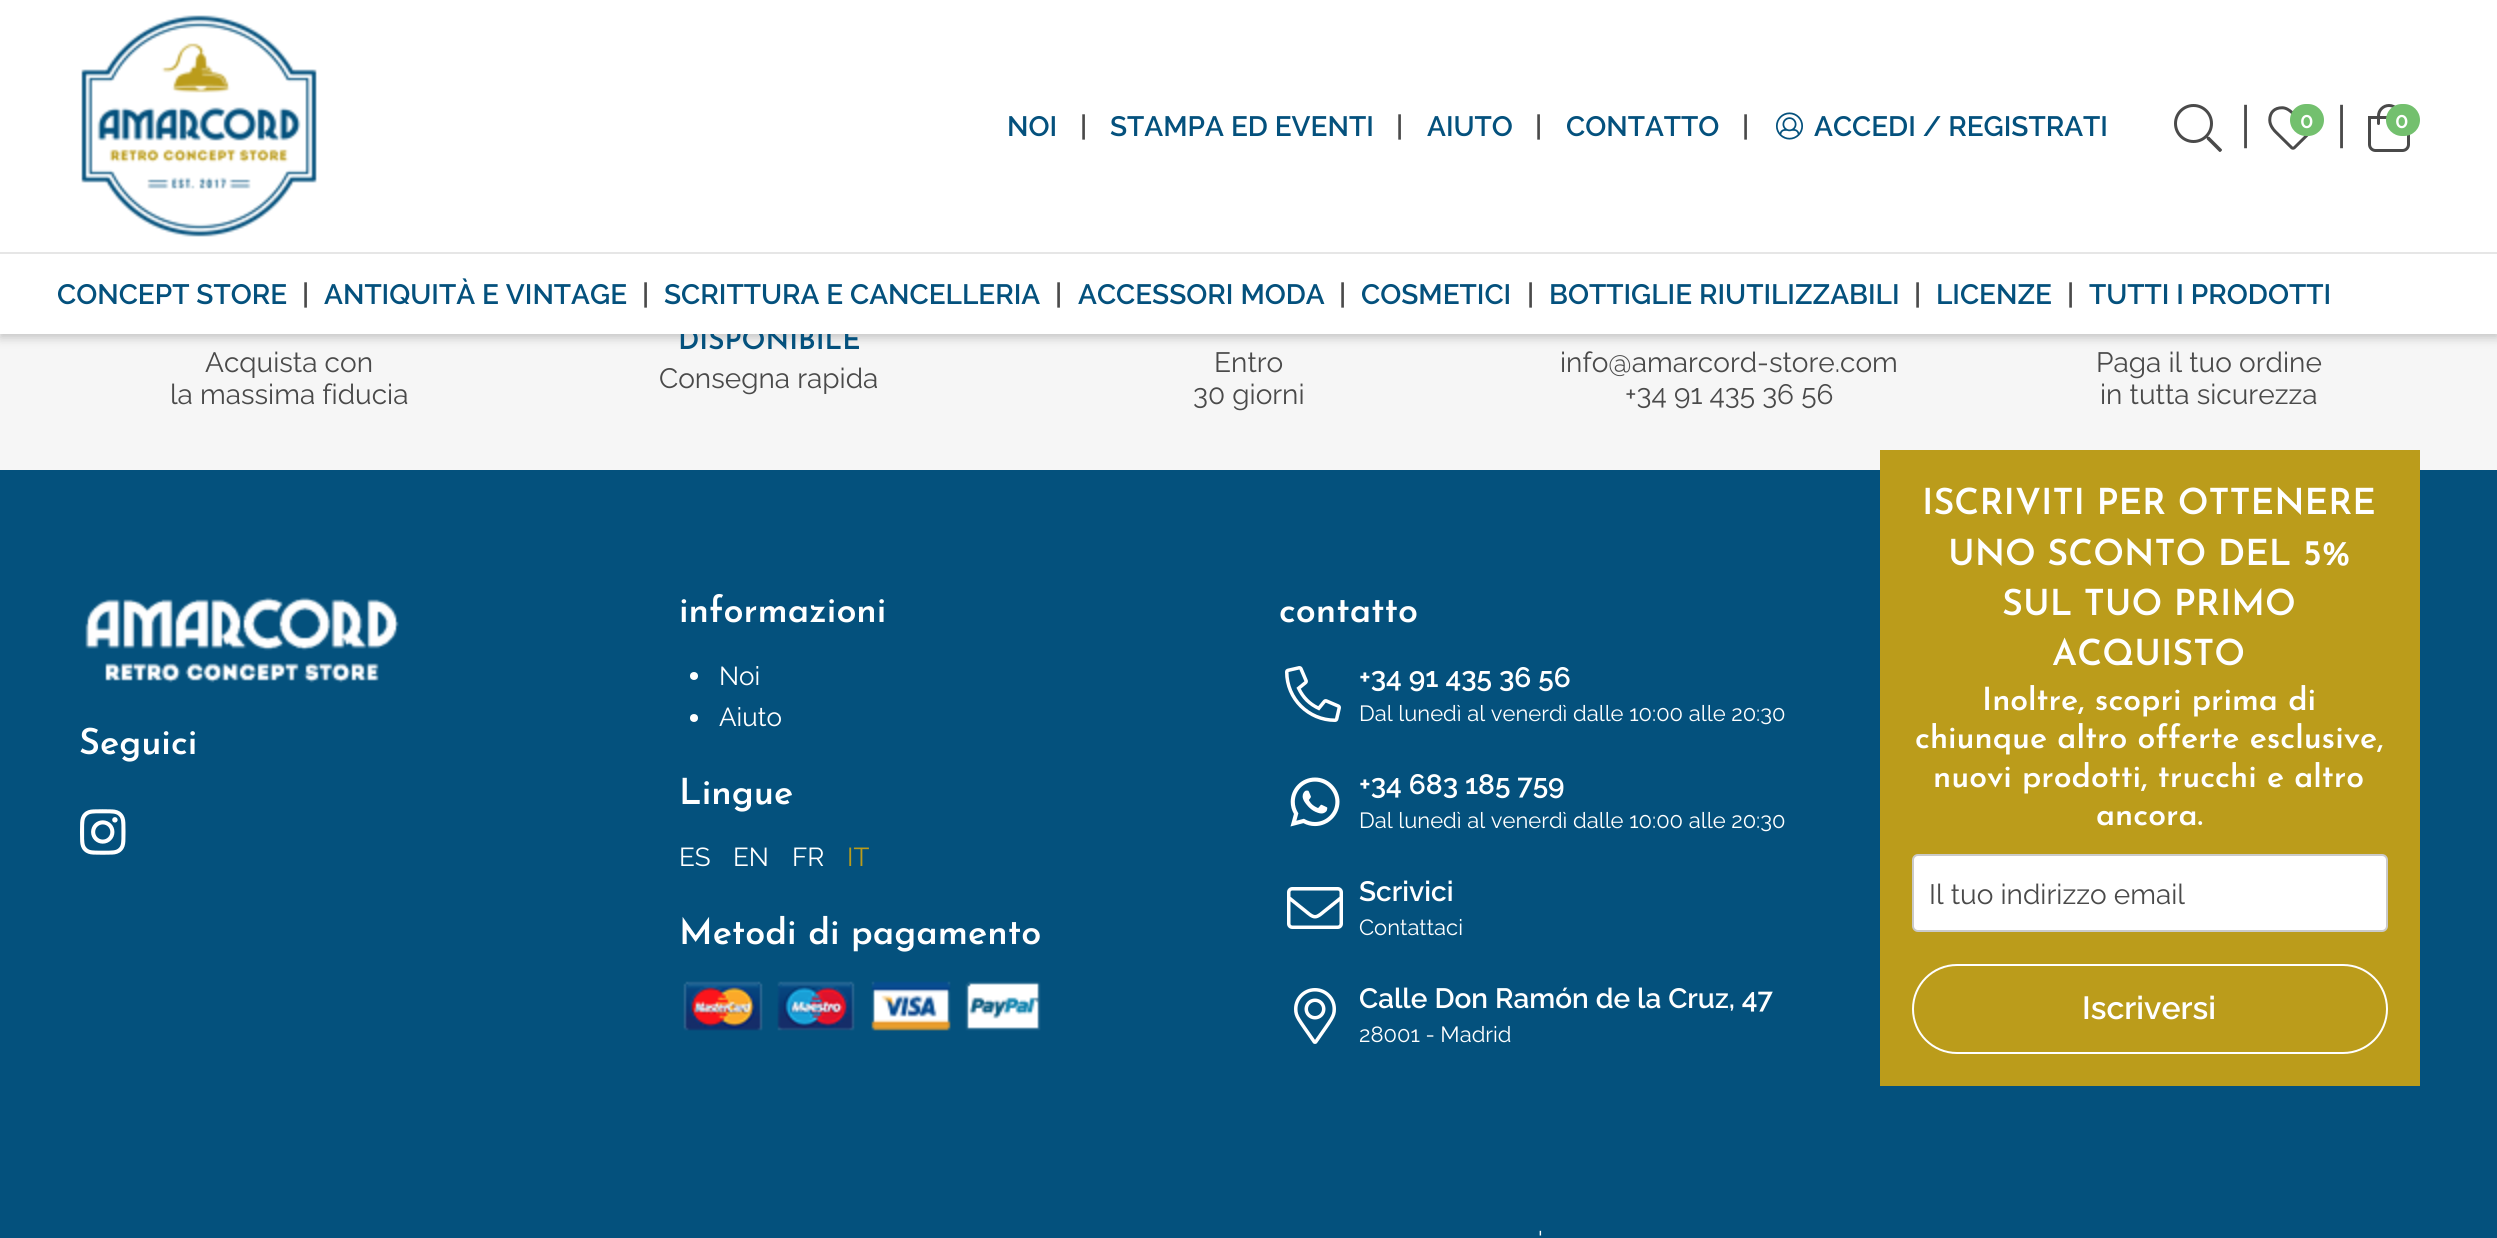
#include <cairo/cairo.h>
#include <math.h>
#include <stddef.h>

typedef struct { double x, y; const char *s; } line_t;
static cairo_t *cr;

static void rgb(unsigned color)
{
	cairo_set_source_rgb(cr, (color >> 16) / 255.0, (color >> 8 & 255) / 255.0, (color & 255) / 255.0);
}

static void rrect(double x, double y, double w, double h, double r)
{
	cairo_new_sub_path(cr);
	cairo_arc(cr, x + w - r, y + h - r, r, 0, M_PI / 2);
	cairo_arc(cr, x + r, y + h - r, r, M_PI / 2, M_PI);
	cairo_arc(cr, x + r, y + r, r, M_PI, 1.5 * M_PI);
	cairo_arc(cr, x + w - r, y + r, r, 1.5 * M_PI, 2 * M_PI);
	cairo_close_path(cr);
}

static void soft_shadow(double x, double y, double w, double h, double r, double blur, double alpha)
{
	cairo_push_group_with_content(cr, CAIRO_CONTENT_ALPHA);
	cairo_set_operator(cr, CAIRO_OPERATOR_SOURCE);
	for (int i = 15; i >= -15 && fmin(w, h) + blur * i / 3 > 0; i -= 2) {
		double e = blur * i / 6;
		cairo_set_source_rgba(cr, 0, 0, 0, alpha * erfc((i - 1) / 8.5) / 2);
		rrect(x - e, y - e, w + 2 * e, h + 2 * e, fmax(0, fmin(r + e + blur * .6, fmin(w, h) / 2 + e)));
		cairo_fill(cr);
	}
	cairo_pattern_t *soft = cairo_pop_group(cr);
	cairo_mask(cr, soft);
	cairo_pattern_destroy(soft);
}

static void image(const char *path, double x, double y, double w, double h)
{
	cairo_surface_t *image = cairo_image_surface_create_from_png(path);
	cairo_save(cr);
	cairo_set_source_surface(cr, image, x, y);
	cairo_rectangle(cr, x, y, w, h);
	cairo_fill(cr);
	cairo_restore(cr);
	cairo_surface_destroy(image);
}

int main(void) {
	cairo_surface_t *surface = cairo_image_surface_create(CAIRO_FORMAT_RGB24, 2497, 1238);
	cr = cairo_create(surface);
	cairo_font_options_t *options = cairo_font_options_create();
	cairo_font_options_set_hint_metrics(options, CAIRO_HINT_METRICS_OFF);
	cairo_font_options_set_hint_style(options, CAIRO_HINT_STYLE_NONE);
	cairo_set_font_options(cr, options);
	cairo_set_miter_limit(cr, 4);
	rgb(0xf6f6f6);
	cairo_paint(cr);
	rgb(0x000000);
	soft_shadow(0, -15, 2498, 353, 0, 5, 0.2);
	rgb(0x04517d);
	cairo_rectangle(cr, 0, 470, 2497, 768);
	cairo_fill(cr);
	image("img/6.png", 85, 597, 314, 86);
	image("img/7.png", 80, 809, 46, 46);
	rgb(0xffffff);
	cairo_arc(cr, 694, 676, 4, 0, 2 * M_PI);
	cairo_fill(cr);
	cairo_arc(cr, 694, 718, 4, 0, 2 * M_PI);
	cairo_fill(cr);
	image("img/8.png", 683, 981, 358, 50);
	image("img/9.png", 1285, 666, 56, 56);
	image("img/10.png", 1290, 777, 50, 50);
	image("img/11.png", 1287, 887, 56, 42);
	image("img/12.png", 1294, 988, 42, 56);
	rgb(0xbb9c1b);
	cairo_rectangle(cr, 1880, 450, 540, 636);
	cairo_fill(cr);
	rgb(0xffffff);
	rrect(1913, 855, 474, 76, 5);
	cairo_fill_preserve(cr);
	rgb(0xcacaca);
	cairo_stroke(cr);
	rrect(1913, 965, 474, 88, 44);
	rgb(0xffffff);
	cairo_stroke(cr);
	cairo_select_font_face(cr, "Raleway", CAIRO_FONT_SLANT_NORMAL, CAIRO_FONT_WEIGHT_NORMAL);
	cairo_set_font_size(cr, 28);
	rgb(0x4a4a4a);
	cairo_move_to(cr, 205, 372);
	cairo_show_text(cr, "Acquista con");
	cairo_move_to(cr, 170, 404);
	cairo_show_text(cr, "la massima fiducia");
	cairo_select_font_face(cr, "Josefin Sans Thin", CAIRO_FONT_SLANT_NORMAL, CAIRO_FONT_WEIGHT_NORMAL);
	rgb(0x04517d);
	cairo_move_to(cr, 678, 349);
	cairo_show_text(cr, "DISPONIBILE");
	rgb(0xffffff);
	cairo_rectangle(cr, 0, 0, 2497, 334);
	cairo_fill(cr);
	cairo_select_font_face(cr, "Raleway SemiBold", CAIRO_FONT_SLANT_NORMAL, CAIRO_FONT_WEIGHT_NORMAL);
	rgb(0x04517d);
	cairo_move_to(cr, 2089, 304);
	cairo_show_text(cr, "TUTTI I PRODOTTI");
	rgb(0x4a4a4a);
	cairo_move_to(cr, 2067, 304);
	cairo_show_text(cr, "|");
	rgb(0x04517d);
	cairo_move_to(cr, 1936, 304);
	cairo_show_text(cr, "LICENZE");
	rgb(0x4a4a4a);
	cairo_move_to(cr, 1914, 304);
	cairo_show_text(cr, "|");
	rgb(0x04517d);
	cairo_move_to(cr, 1549, 304);
	cairo_show_text(cr, "BOTTIGLIE RIUTILIZZABILI");
	rgb(0x4a4a4a);
	cairo_move_to(cr, 1527, 304);
	cairo_show_text(cr, "|");
	rgb(0x04517d);
	cairo_move_to(cr, 1361, 304);
	cairo_show_text(cr, "COSMETICI");
	rgb(0x4a4a4a);
	cairo_move_to(cr, 1339, 304);
	cairo_show_text(cr, "|");
	rgb(0x04517d);
	cairo_move_to(cr, 1078, 304);
	cairo_show_text(cr, "ACCESSORI MODA");
	rgb(0x4a4a4a);
	cairo_move_to(cr, 1055, 304);
	cairo_show_text(cr, "|");
	rgb(0x04517d);
	cairo_move_to(cr, 664, 304);
	cairo_show_text(cr, "SCRITTURA E CANCELLERIA");
	rgb(0x4a4a4a);
	cairo_move_to(cr, 642, 304);
	cairo_show_text(cr, "|");
	rgb(0x04517d);
	cairo_move_to(cr, 324, 304);
	cairo_show_text(cr, "ANTIQUITÀ E VINTAGE");
	rgb(0x4a4a4a);
	cairo_move_to(cr, 302, 304);
	cairo_show_text(cr, "|");
	rgb(0x04517d);
	cairo_move_to(cr, 57, 304);
	cairo_show_text(cr, "CONCEPT STORE");
	image("img/5.png", 2368, 104, 42, 48);
	rgb(0x73c06e);
	rrect(2386, 104, 34, 32, 16);
	cairo_fill(cr);
	cairo_set_font_size(cr, 22);
	rgb(0xffffff);
	cairo_move_to(cr, 2395, 128);
	cairo_show_text(cr, "0");
	image("img/4.png", 2268, 106, 42, 44);
	rgb(0x73c06e);
	rrect(2290, 104, 34, 32, 16);
	cairo_fill(cr);
	rgb(0xffffff);
	cairo_move_to(cr, 2300, 128);
	cairo_show_text(cr, "0");
	image("img/3.png", 2174, 104, 48, 48);
	image("img/2.png", 1776, 112, 27, 28);
	cairo_select_font_face(cr, "Raleway", CAIRO_FONT_SLANT_NORMAL, CAIRO_FONT_WEIGHT_NORMAL);
	cairo_set_font_size(cr, 48);
	rgb(0x4a4a4a);
	cairo_move_to(cr, 2336, 142);
	cairo_show_text(cr, "|");
	cairo_move_to(cr, 2240, 142);
	cairo_show_text(cr, "|");
	cairo_select_font_face(cr, "Raleway SemiBold", CAIRO_FONT_SLANT_NORMAL, CAIRO_FONT_WEIGHT_NORMAL);
	cairo_set_font_size(cr, 28);
	rgb(0x04517d);
	cairo_move_to(cr, 1814, 136);
	cairo_show_text(cr, "ACCEDI / REGISTRATI");
	rgb(0x4a4a4a);
	cairo_move_to(cr, 1742, 136);
	cairo_show_text(cr, "|");
	rgb(0x04517d);
	cairo_move_to(cr, 1566, 136);
	cairo_show_text(cr, "CONTATTO");
	rgb(0x4a4a4a);
	cairo_move_to(cr, 1535, 136);
	cairo_show_text(cr, "|");
	rgb(0x04517d);
	cairo_move_to(cr, 1427, 136);
	cairo_show_text(cr, "AIUTO");
	rgb(0x4a4a4a);
	cairo_move_to(cr, 1396, 136);
	cairo_show_text(cr, "|");
	rgb(0x04517d);
	cairo_move_to(cr, 1110, 136);
	cairo_show_text(cr, "STAMPA ED EVENTI");
	rgb(0x4a4a4a);
	cairo_move_to(cr, 1080, 136);
	cairo_show_text(cr, "|");
	rgb(0x04517d);
	cairo_move_to(cr, 1007, 136);
	cairo_show_text(cr, "NOI");
	image("img/1.png", 81, 15, 236, 222);
	rgb(0xe6e6e6);
	cairo_rectangle(cr, 0, 252, 2497, 2);
	cairo_fill(cr);
	cairo_select_font_face(cr, "Raleway", CAIRO_FONT_SLANT_NORMAL, CAIRO_FONT_WEIGHT_NORMAL);
	rgb(0x4a4a4a);
	{
		static const line_t items[] = {
			{659, 388, "Consegna rapida"},
			{1214, 372, "Entro"},
			{1193, 404, "30 giorni"},
			{1560, 372, "info@amarcord-store.com"},
			{1625, 404, "+34 91 435 36 56"},
			{2096, 372, "Paga il tuo ordine"},
			{2100, 404, "in tutta sicurezza"},
		};
		for (size_t i = 0; i < sizeof items / sizeof *items; i++) {
			cairo_move_to(cr, items[i].x, items[i].y);
			cairo_show_text(cr, items[i].s);
		}
	}
	cairo_select_font_face(cr, "Josefin Sans Thin", CAIRO_FONT_SLANT_NORMAL, CAIRO_FONT_WEIGHT_NORMAL);
	cairo_set_font_size(cr, 36);
	rgb(0xffffff);
	cairo_move_to(cr, 79, 754);
	cairo_show_text(cr, "Seguici");
	cairo_move_to(cr, 679, 622);
	cairo_show_text(cr, "informazioni");
	cairo_select_font_face(cr, "Raleway", CAIRO_FONT_SLANT_NORMAL, CAIRO_FONT_WEIGHT_NORMAL);
	cairo_set_font_size(cr, 26);
	cairo_move_to(cr, 719, 685);
	cairo_show_text(cr, "Noi");
	cairo_move_to(cr, 719, 726);
	cairo_show_text(cr, "Aiuto");
	cairo_select_font_face(cr, "Josefin Sans Thin", CAIRO_FONT_SLANT_NORMAL, CAIRO_FONT_WEIGHT_NORMAL);
	cairo_set_font_size(cr, 36);
	cairo_move_to(cr, 679, 804);
	cairo_show_text(cr, "Lingue");
	cairo_select_font_face(cr, "Raleway", CAIRO_FONT_SLANT_NORMAL, CAIRO_FONT_WEIGHT_NORMAL);
	cairo_set_font_size(cr, 26);
	{
		static const line_t items[] = {
			{679, 866, "ES"},
			{733, 866, "EN"},
			{792, 866, "FR"},
		};
		for (size_t i = 0; i < sizeof items / sizeof *items; i++) {
			cairo_move_to(cr, items[i].x, items[i].y);
			cairo_show_text(cr, items[i].s);
		}
	}
	rgb(0xbb9c1b);
	cairo_move_to(cr, 847, 866);
	cairo_show_text(cr, "IT");
	cairo_select_font_face(cr, "Josefin Sans Thin", CAIRO_FONT_SLANT_NORMAL, CAIRO_FONT_WEIGHT_NORMAL);
	cairo_set_font_size(cr, 36);
	rgb(0xffffff);
	cairo_move_to(cr, 679, 944);
	cairo_show_text(cr, "Metodi di pagamento");
	cairo_move_to(cr, 1279, 622);
	cairo_show_text(cr, "contatto");
	cairo_select_font_face(cr, "Raleway SemiBold", CAIRO_FONT_SLANT_NORMAL, CAIRO_FONT_WEIGHT_NORMAL);
	cairo_set_font_size(cr, 28);
	cairo_move_to(cr, 1359, 687);
	cairo_show_text(cr, "+34 91 435 36 56");
	cairo_select_font_face(cr, "Raleway", CAIRO_FONT_SLANT_NORMAL, CAIRO_FONT_WEIGHT_NORMAL);
	cairo_set_font_size(cr, 22);
	cairo_move_to(cr, 1359, 721);
	cairo_show_text(cr, "Dal lunedì al venerdì dalle 10:00 alle 20:30");
	cairo_select_font_face(cr, "Raleway SemiBold", CAIRO_FONT_SLANT_NORMAL, CAIRO_FONT_WEIGHT_NORMAL);
	cairo_set_font_size(cr, 28);
	cairo_move_to(cr, 1359, 794);
	cairo_show_text(cr, "+34 683 185 759");
	cairo_select_font_face(cr, "Raleway", CAIRO_FONT_SLANT_NORMAL, CAIRO_FONT_WEIGHT_NORMAL);
	cairo_set_font_size(cr, 22);
	cairo_move_to(cr, 1359, 828);
	cairo_show_text(cr, "Dal lunedì al venerdì dalle 10:00 alle 20:30");
	cairo_select_font_face(cr, "Raleway SemiBold", CAIRO_FONT_SLANT_NORMAL, CAIRO_FONT_WEIGHT_NORMAL);
	cairo_set_font_size(cr, 28);
	cairo_move_to(cr, 1359, 901);
	cairo_show_text(cr, "Scrivici");
	cairo_select_font_face(cr, "Raleway", CAIRO_FONT_SLANT_NORMAL, CAIRO_FONT_WEIGHT_NORMAL);
	cairo_set_font_size(cr, 22);
	cairo_move_to(cr, 1359, 935);
	cairo_show_text(cr, "Contattaci");
	cairo_select_font_face(cr, "Raleway SemiBold", CAIRO_FONT_SLANT_NORMAL, CAIRO_FONT_WEIGHT_NORMAL);
	cairo_set_font_size(cr, 28);
	cairo_move_to(cr, 1359, 1008);
	cairo_show_text(cr, "Calle Don Ramón de la Cruz, 47");
	cairo_select_font_face(cr, "Raleway", CAIRO_FONT_SLANT_NORMAL, CAIRO_FONT_WEIGHT_NORMAL);
	cairo_set_font_size(cr, 22);
	cairo_move_to(cr, 1359, 1042);
	cairo_show_text(cr, "28001 - Madrid");
	cairo_select_font_face(cr, "Josefin Sans Thin", CAIRO_FONT_SLANT_NORMAL, CAIRO_FONT_WEIGHT_NORMAL);
	cairo_set_font_size(cr, 36);
	{
		static const line_t items[] = {
			{1922, 514, "ISCRIVITI PER OTTENERE"},
			{1948, 565, "UNO SCONTO DEL 5%"},
			{2002, 615, "SUL TUO PRIMO"},
			{2052, 665, "ACQUISTO"},
		};
		for (size_t i = 0; i < sizeof items / sizeof *items; i++) {
			cairo_move_to(cr, items[i].x, items[i].y);
			cairo_show_text(cr, items[i].s);
		}
	}
	cairo_set_font_size(cr, 32);
	{
		static const line_t items[] = {
			{1982, 710, "Inoltre, scopri prima di"},
			{1915, 748, "chiunque altro offerte esclusive,"},
			{1933, 787, "nuovi prodotti, trucchi e altro"},
			{2096, 825, "ancora."},
		};
		for (size_t i = 0; i < sizeof items / sizeof *items; i++) {
			cairo_move_to(cr, items[i].x, items[i].y);
			cairo_show_text(cr, items[i].s);
		}
	}
	cairo_select_font_face(cr, "Raleway", CAIRO_FONT_SLANT_NORMAL, CAIRO_FONT_WEIGHT_NORMAL);
	cairo_set_font_size(cr, 28);
	rgb(0x4a4a4a);
	cairo_move_to(cr, 1929, 904);
	cairo_show_text(cr, "Il tuo indirizzo email");
	cairo_select_font_face(cr, "Raleway SemiBold", CAIRO_FONT_SLANT_NORMAL, CAIRO_FONT_WEIGHT_NORMAL);
	cairo_set_font_size(cr, 32);
	rgb(0xffffff);
	cairo_move_to(cr, 2082, 1019);
	cairo_show_text(cr, "Iscriversi");
	cairo_select_font_face(cr, "Raleway", CAIRO_FONT_SLANT_NORMAL, CAIRO_FONT_WEIGHT_NORMAL);
	cairo_set_font_size(cr, 24);
	cairo_move_to(cr, 1538, 1248);
	cairo_show_text(cr, "'");
	cairo_surface_write_to_png(surface, "page.png");
	cairo_font_options_destroy(options);
	cairo_destroy(cr);
	cairo_surface_destroy(surface);
	return 0;
}
